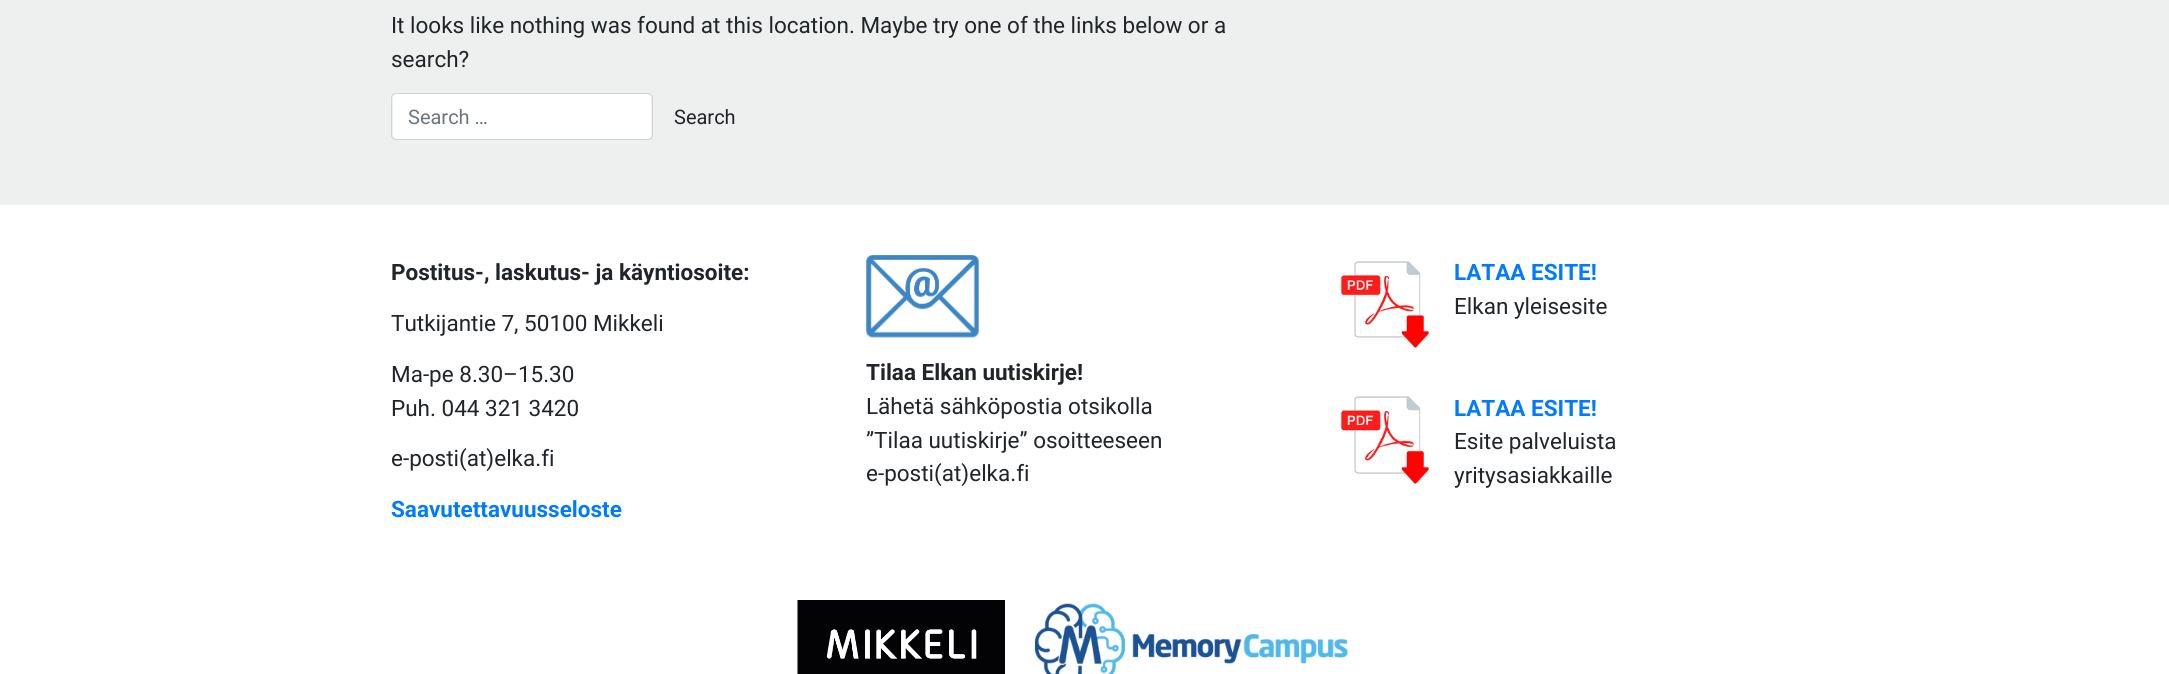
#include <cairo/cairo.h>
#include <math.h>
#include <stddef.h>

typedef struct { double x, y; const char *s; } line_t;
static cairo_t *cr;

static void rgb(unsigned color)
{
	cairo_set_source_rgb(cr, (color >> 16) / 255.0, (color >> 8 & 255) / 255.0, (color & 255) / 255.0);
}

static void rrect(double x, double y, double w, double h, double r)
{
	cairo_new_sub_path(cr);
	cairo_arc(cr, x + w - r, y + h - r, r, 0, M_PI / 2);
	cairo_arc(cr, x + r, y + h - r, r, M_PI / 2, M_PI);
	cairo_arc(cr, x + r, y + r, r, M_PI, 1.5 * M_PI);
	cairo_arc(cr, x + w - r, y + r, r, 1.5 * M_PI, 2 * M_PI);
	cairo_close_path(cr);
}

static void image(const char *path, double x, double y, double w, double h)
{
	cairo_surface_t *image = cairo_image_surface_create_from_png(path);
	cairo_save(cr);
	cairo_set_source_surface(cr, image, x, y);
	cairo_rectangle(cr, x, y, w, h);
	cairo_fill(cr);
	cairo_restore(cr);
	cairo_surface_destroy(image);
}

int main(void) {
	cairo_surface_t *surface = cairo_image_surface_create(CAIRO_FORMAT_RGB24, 2169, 674);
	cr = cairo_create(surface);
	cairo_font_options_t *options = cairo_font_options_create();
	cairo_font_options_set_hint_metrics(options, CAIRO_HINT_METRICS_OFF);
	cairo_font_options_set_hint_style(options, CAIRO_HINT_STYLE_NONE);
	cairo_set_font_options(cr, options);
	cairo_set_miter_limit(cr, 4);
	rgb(0xffffff);
	cairo_paint(cr);
	rgb(0xeeefef);
	cairo_rectangle(cr, 0, 0, 2169, 205);
	cairo_fill(cr);
	rgb(0xffffff);
	rrect(393, 94, 258, 45, 4);
	cairo_fill(cr);
	rrect(391.5, 93.5, 261, 46, 4.5);
	rgb(0xced4da);
	cairo_set_line_width(cr, 1);
	cairo_stroke(cr);
	image("img/1.png", 866, 255, 113, 83);
	image("img/2.png", 1341, 261, 88, 87);
	image("img/3.png", 1341, 396, 88, 88);
	image("img/4.png", 797, 600, 208, 74);
	image("img/5.png", 1035, 603, 313, 71);
	cairo_select_font_face(cr, "Roboto", CAIRO_FONT_SLANT_NORMAL, CAIRO_FONT_WEIGHT_NORMAL);
	cairo_set_font_size(cr, 22.5);
	rgb(0x212529);
	cairo_move_to(cr, 391, 33);
	cairo_show_text(cr, "It looks like nothing was found at this location. Maybe try one of the links below or a");
	cairo_move_to(cr, 391, 67);
	cairo_show_text(cr, "search?");
	cairo_set_font_size(cr, 20);
	rgb(0x6c757d);
	cairo_move_to(cr, 408, 124);
	cairo_show_text(cr, "Search …");
	rgb(0x212529);
	cairo_move_to(cr, 674, 124);
	cairo_show_text(cr, "Search");
	cairo_select_font_face(cr, "Roboto", CAIRO_FONT_SLANT_NORMAL, CAIRO_FONT_WEIGHT_BOLD);
	cairo_set_font_size(cr, 22.5);
	cairo_move_to(cr, 391, 280);
	cairo_show_text(cr, "Postitus-, laskutus- ja käyntiosoite:");
	cairo_select_font_face(cr, "Roboto", CAIRO_FONT_SLANT_NORMAL, CAIRO_FONT_WEIGHT_NORMAL);
	{
		static const line_t items[] = {
			{391, 331, "Tutkijantie 7, 50100 Mikkeli"},
			{391, 382, "Ma-pe 8.30–15.30"},
			{391, 416, "Puh. 044 321 3420"},
			{391, 466, "e-posti(at)elka.fi"},
		};
		for (size_t i = 0; i < sizeof items / sizeof *items; i++) {
			cairo_move_to(cr, items[i].x, items[i].y);
			cairo_show_text(cr, items[i].s);
		}
	}
	cairo_select_font_face(cr, "Roboto", CAIRO_FONT_SLANT_NORMAL, CAIRO_FONT_WEIGHT_BOLD);
	rgb(0x007bff);
	cairo_move_to(cr, 391, 517);
	cairo_show_text(cr, "Saavutettavuusseloste");
	rgb(0x212529);
	cairo_move_to(cr, 866, 380);
	cairo_show_text(cr, "Tilaa Elkan uutiskirje!");
	cairo_select_font_face(cr, "Roboto", CAIRO_FONT_SLANT_NORMAL, CAIRO_FONT_WEIGHT_NORMAL);
	{
		static const line_t items[] = {
			{866, 414, "Lähetä sähköpostia otsikolla"},
			{866, 448, "”Tilaa uutiskirje” osoitteeseen"},
			{866, 481, "e-posti(at)elka.fi"},
		};
		for (size_t i = 0; i < sizeof items / sizeof *items; i++) {
			cairo_move_to(cr, items[i].x, items[i].y);
			cairo_show_text(cr, items[i].s);
		}
	}
	cairo_select_font_face(cr, "Roboto", CAIRO_FONT_SLANT_NORMAL, CAIRO_FONT_WEIGHT_BOLD);
	rgb(0x007bff);
	cairo_move_to(cr, 1454, 280);
	cairo_show_text(cr, "LATAA ESITE!");
	cairo_select_font_face(cr, "Roboto", CAIRO_FONT_SLANT_NORMAL, CAIRO_FONT_WEIGHT_NORMAL);
	rgb(0x212529);
	cairo_move_to(cr, 1454, 314);
	cairo_show_text(cr, "Elkan yleisesite");
	cairo_select_font_face(cr, "Roboto", CAIRO_FONT_SLANT_NORMAL, CAIRO_FONT_WEIGHT_BOLD);
	rgb(0x007bff);
	cairo_move_to(cr, 1454, 416);
	cairo_show_text(cr, "LATAA ESITE!");
	cairo_select_font_face(cr, "Roboto", CAIRO_FONT_SLANT_NORMAL, CAIRO_FONT_WEIGHT_NORMAL);
	rgb(0x212529);
	cairo_move_to(cr, 1454, 449);
	cairo_show_text(cr, "Esite palveluista");
	cairo_move_to(cr, 1454, 483);
	cairo_show_text(cr, "yritysasiakkaille");
	cairo_surface_write_to_png(surface, "page.png");
	cairo_font_options_destroy(options);
	cairo_destroy(cr);
	cairo_surface_destroy(surface);
	return 0;
}
